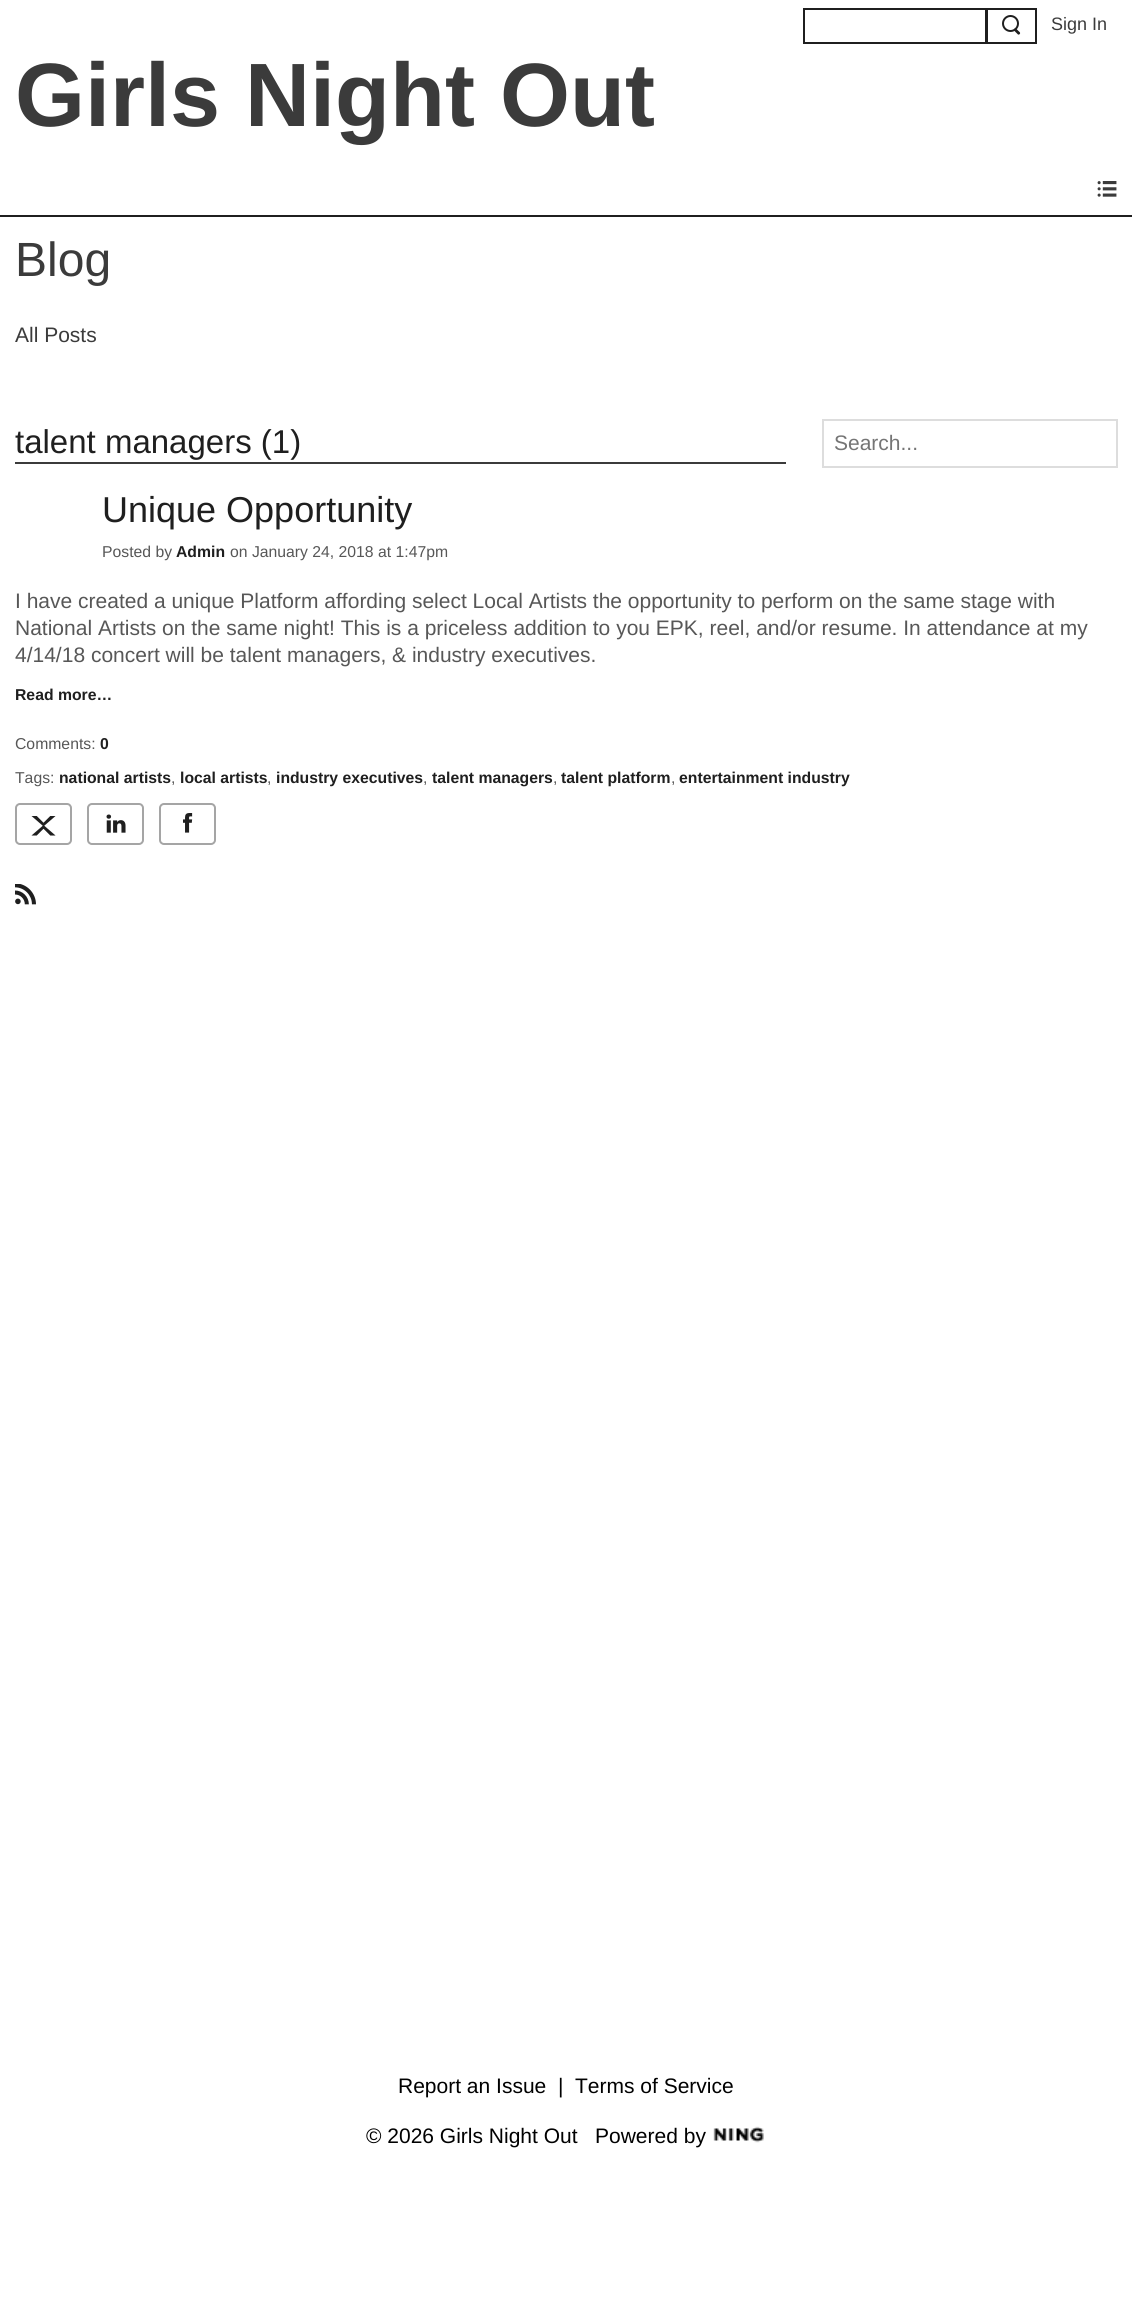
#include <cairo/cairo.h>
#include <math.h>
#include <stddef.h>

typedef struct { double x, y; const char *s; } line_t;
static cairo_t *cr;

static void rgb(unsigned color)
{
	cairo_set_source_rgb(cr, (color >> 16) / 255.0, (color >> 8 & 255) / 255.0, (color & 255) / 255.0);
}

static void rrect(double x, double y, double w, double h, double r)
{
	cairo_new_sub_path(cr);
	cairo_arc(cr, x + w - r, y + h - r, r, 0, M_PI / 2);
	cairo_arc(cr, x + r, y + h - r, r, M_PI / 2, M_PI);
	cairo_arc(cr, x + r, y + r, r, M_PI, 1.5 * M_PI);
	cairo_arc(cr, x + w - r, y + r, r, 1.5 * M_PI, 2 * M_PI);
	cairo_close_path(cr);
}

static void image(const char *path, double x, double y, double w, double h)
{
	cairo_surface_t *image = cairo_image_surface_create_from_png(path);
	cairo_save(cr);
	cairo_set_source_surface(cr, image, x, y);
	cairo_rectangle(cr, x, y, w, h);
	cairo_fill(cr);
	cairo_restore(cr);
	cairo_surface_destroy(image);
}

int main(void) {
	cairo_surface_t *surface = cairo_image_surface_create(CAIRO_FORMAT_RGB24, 1132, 2298);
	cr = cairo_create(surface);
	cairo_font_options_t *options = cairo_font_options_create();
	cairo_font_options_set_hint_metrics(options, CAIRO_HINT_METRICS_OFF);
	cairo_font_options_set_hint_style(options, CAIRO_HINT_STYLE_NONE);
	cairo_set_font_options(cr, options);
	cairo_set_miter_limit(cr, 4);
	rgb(0xffffff);
	cairo_paint(cr);
	cairo_rectangle(cr, 804, 9, 182, 34);
	rgb(0x1f1f1f);
	cairo_stroke(cr);
	cairo_rectangle(cr, 987, 9, 49, 34);
	cairo_stroke(cr);
	cairo_arc(cr, 1010.5, 23.5, 7.5, 0, 2 * M_PI);
	cairo_stroke(cr);
	cairo_new_path(cr);
	cairo_move_to(cr, 1016.5, 29);
	cairo_line_to(cr, 1020, 32.5);
	cairo_curve_to(cr, 1020.5, 33.5, 1019.5, 35, 1018, 34.5);
	cairo_line_to(cr, 1014, 30.5);
	cairo_curve_to(cr, 1013.5, 29, 1015.5, 27.5, 1016.5, 29);
	cairo_close_path(cr);
	cairo_fill(cr);
	cairo_rectangle(cr, 0, 215, 1132, 2);
	cairo_fill(cr);
	image("img/1.png", 1097, 181, 20, 16);
	rgb(0x3b3b3b);
	cairo_rectangle(cr, 15, 462, 771, 2);
	cairo_fill(cr);
	cairo_rectangle(cr, 823, 420, 294, 47);
	rgb(0xdddddd);
	cairo_stroke(cr);
	rrect(16, 804, 55, 40, 4);
	rgb(0xa5a5a5);
	cairo_stroke(cr);
	image("img/2.png", 31, 816, 25, 20);
	rrect(88, 804, 55, 40, 4);
	cairo_stroke(cr);
	image("img/3.png", 106, 814, 20, 19);
	rrect(160, 804, 55, 40, 4);
	cairo_stroke(cr);
	image("img/4.png", 183, 813, 10, 20);
	image("img/5.png", 15, 884, 21, 21);
	image("img/6.png", 713, 2126, 51, 17);
	cairo_select_font_face(cr, "Liberation Sans", CAIRO_FONT_SLANT_NORMAL, CAIRO_FONT_WEIGHT_NORMAL);
	cairo_set_font_size(cr, 18);
	rgb(0x3b3b3b);
	cairo_move_to(cr, 1051, 30);
	cairo_show_text(cr, "Sign In");
	cairo_select_font_face(cr, "Liberation Sans", CAIRO_FONT_SLANT_NORMAL, CAIRO_FONT_WEIGHT_BOLD);
	cairo_set_font_size(cr, 90);
	cairo_move_to(cr, 15, 126);
	cairo_show_text(cr, "Girls Night Out");
	cairo_select_font_face(cr, "Liberation Sans", CAIRO_FONT_SLANT_NORMAL, CAIRO_FONT_WEIGHT_NORMAL);
	cairo_set_font_size(cr, 48);
	cairo_move_to(cr, 15, 276);
	cairo_show_text(cr, "Blog");
	cairo_set_font_size(cr, 21);
	cairo_move_to(cr, 15, 342);
	cairo_show_text(cr, "All Posts");
	cairo_set_font_size(cr, 33);
	rgb(0x1f1f1f);
	cairo_move_to(cr, 15, 453);
	cairo_show_text(cr, "talent managers (1)");
	cairo_set_font_size(cr, 21);
	rgb(0x757575);
	cairo_move_to(cr, 834, 450);
	cairo_show_text(cr, "Search...");
	cairo_set_font_size(cr, 36);
	rgb(0x1f1f1f);
	cairo_move_to(cr, 102, 522);
	cairo_show_text(cr, "Unique Opportunity");
	cairo_set_font_size(cr, 15.75);
	rgb(0x575757);
	cairo_move_to(cr, 102, 557);
	cairo_show_text(cr, "Posted by");
	cairo_select_font_face(cr, "Liberation Sans", CAIRO_FONT_SLANT_NORMAL, CAIRO_FONT_WEIGHT_BOLD);
	rgb(0x1f1f1f);
	cairo_move_to(cr, 176, 557);
	cairo_show_text(cr, "Admin");
	cairo_select_font_face(cr, "Liberation Sans", CAIRO_FONT_SLANT_NORMAL, CAIRO_FONT_WEIGHT_NORMAL);
	rgb(0x575757);
	cairo_move_to(cr, 230, 557);
	cairo_show_text(cr, "on January 24, 2018 at 1:47pm");
	cairo_set_font_size(cr, 21);
	{
		static const line_t items[] = {
			{15, 608, "I have created a unique Platform affording select Local Artists the opportunity to perform on the same stage with"},
			{15, 635, "National Artists on the same night! This is a priceless addition to you EPK, reel, and/or resume. In attendance at my"},
			{15, 662, "4/14/18 concert will be talent managers, & industry executives."},
		};
		for (size_t i = 0; i < sizeof items / sizeof *items; i++) {
			cairo_move_to(cr, items[i].x, items[i].y);
			cairo_show_text(cr, items[i].s);
		}
	}
	cairo_select_font_face(cr, "Liberation Sans", CAIRO_FONT_SLANT_NORMAL, CAIRO_FONT_WEIGHT_BOLD);
	cairo_set_font_size(cr, 15.75);
	rgb(0x1f1f1f);
	cairo_move_to(cr, 15, 700);
	cairo_show_text(cr, "Read more…");
	cairo_select_font_face(cr, "Liberation Sans", CAIRO_FONT_SLANT_NORMAL, CAIRO_FONT_WEIGHT_NORMAL);
	rgb(0x575757);
	cairo_move_to(cr, 15, 749);
	cairo_show_text(cr, "Comments:");
	cairo_select_font_face(cr, "Liberation Sans", CAIRO_FONT_SLANT_NORMAL, CAIRO_FONT_WEIGHT_BOLD);
	rgb(0x1f1f1f);
	cairo_move_to(cr, 100, 749);
	cairo_show_text(cr, "0");
	cairo_select_font_face(cr, "Liberation Sans", CAIRO_FONT_SLANT_NORMAL, CAIRO_FONT_WEIGHT_NORMAL);
	rgb(0x575757);
	cairo_move_to(cr, 15, 783);
	cairo_show_text(cr, "Tags:");
	cairo_select_font_face(cr, "Liberation Sans", CAIRO_FONT_SLANT_NORMAL, CAIRO_FONT_WEIGHT_BOLD);
	rgb(0x1f1f1f);
	cairo_move_to(cr, 59, 783);
	cairo_show_text(cr, "national artists");
	cairo_select_font_face(cr, "Liberation Sans", CAIRO_FONT_SLANT_NORMAL, CAIRO_FONT_WEIGHT_NORMAL);
	rgb(0x575757);
	cairo_move_to(cr, 171, 783);
	cairo_show_text(cr, ",");
	cairo_select_font_face(cr, "Liberation Sans", CAIRO_FONT_SLANT_NORMAL, CAIRO_FONT_WEIGHT_BOLD);
	rgb(0x1f1f1f);
	cairo_move_to(cr, 180, 783);
	cairo_show_text(cr, "local artists");
	cairo_select_font_face(cr, "Liberation Sans", CAIRO_FONT_SLANT_NORMAL, CAIRO_FONT_WEIGHT_NORMAL);
	rgb(0x575757);
	cairo_move_to(cr, 267, 783);
	cairo_show_text(cr, ",");
	cairo_select_font_face(cr, "Liberation Sans", CAIRO_FONT_SLANT_NORMAL, CAIRO_FONT_WEIGHT_BOLD);
	rgb(0x1f1f1f);
	cairo_move_to(cr, 276, 783);
	cairo_show_text(cr, "industry executives");
	cairo_select_font_face(cr, "Liberation Sans", CAIRO_FONT_SLANT_NORMAL, CAIRO_FONT_WEIGHT_NORMAL);
	rgb(0x575757);
	cairo_move_to(cr, 423, 783);
	cairo_show_text(cr, ",");
	cairo_select_font_face(cr, "Liberation Sans", CAIRO_FONT_SLANT_NORMAL, CAIRO_FONT_WEIGHT_BOLD);
	rgb(0x1f1f1f);
	cairo_move_to(cr, 432, 783);
	cairo_show_text(cr, "talent managers");
	cairo_select_font_face(cr, "Liberation Sans", CAIRO_FONT_SLANT_NORMAL, CAIRO_FONT_WEIGHT_NORMAL);
	rgb(0x575757);
	cairo_move_to(cr, 553, 783);
	cairo_show_text(cr, ",");
	cairo_select_font_face(cr, "Liberation Sans", CAIRO_FONT_SLANT_NORMAL, CAIRO_FONT_WEIGHT_BOLD);
	rgb(0x1f1f1f);
	cairo_move_to(cr, 561, 783);
	cairo_show_text(cr, "talent platform");
	cairo_select_font_face(cr, "Liberation Sans", CAIRO_FONT_SLANT_NORMAL, CAIRO_FONT_WEIGHT_NORMAL);
	rgb(0x575757);
	cairo_move_to(cr, 671, 783);
	cairo_show_text(cr, ",");
	cairo_select_font_face(cr, "Liberation Sans", CAIRO_FONT_SLANT_NORMAL, CAIRO_FONT_WEIGHT_BOLD);
	rgb(0x1f1f1f);
	cairo_move_to(cr, 679, 783);
	cairo_show_text(cr, "entertainment industry");
	cairo_select_font_face(cr, "Liberation Sans", CAIRO_FONT_SLANT_NORMAL, CAIRO_FONT_WEIGHT_NORMAL);
	cairo_set_font_size(cr, 21);
	rgb(0x000000);
	{
		static const line_t items[] = {
			{398, 2093, "Report an Issue"},
			{558, 2093, "|"},
			{575, 2093, "Terms of Service"},
			{366, 2143, "© 2026 Girls Night Out"},
			{595, 2143, "Powered by"},
		};
		for (size_t i = 0; i < sizeof items / sizeof *items; i++) {
			cairo_move_to(cr, items[i].x, items[i].y);
			cairo_show_text(cr, items[i].s);
		}
	}
	cairo_surface_write_to_png(surface, "page.png");
	cairo_font_options_destroy(options);
	cairo_destroy(cr);
	cairo_surface_destroy(surface);
	return 0;
}
